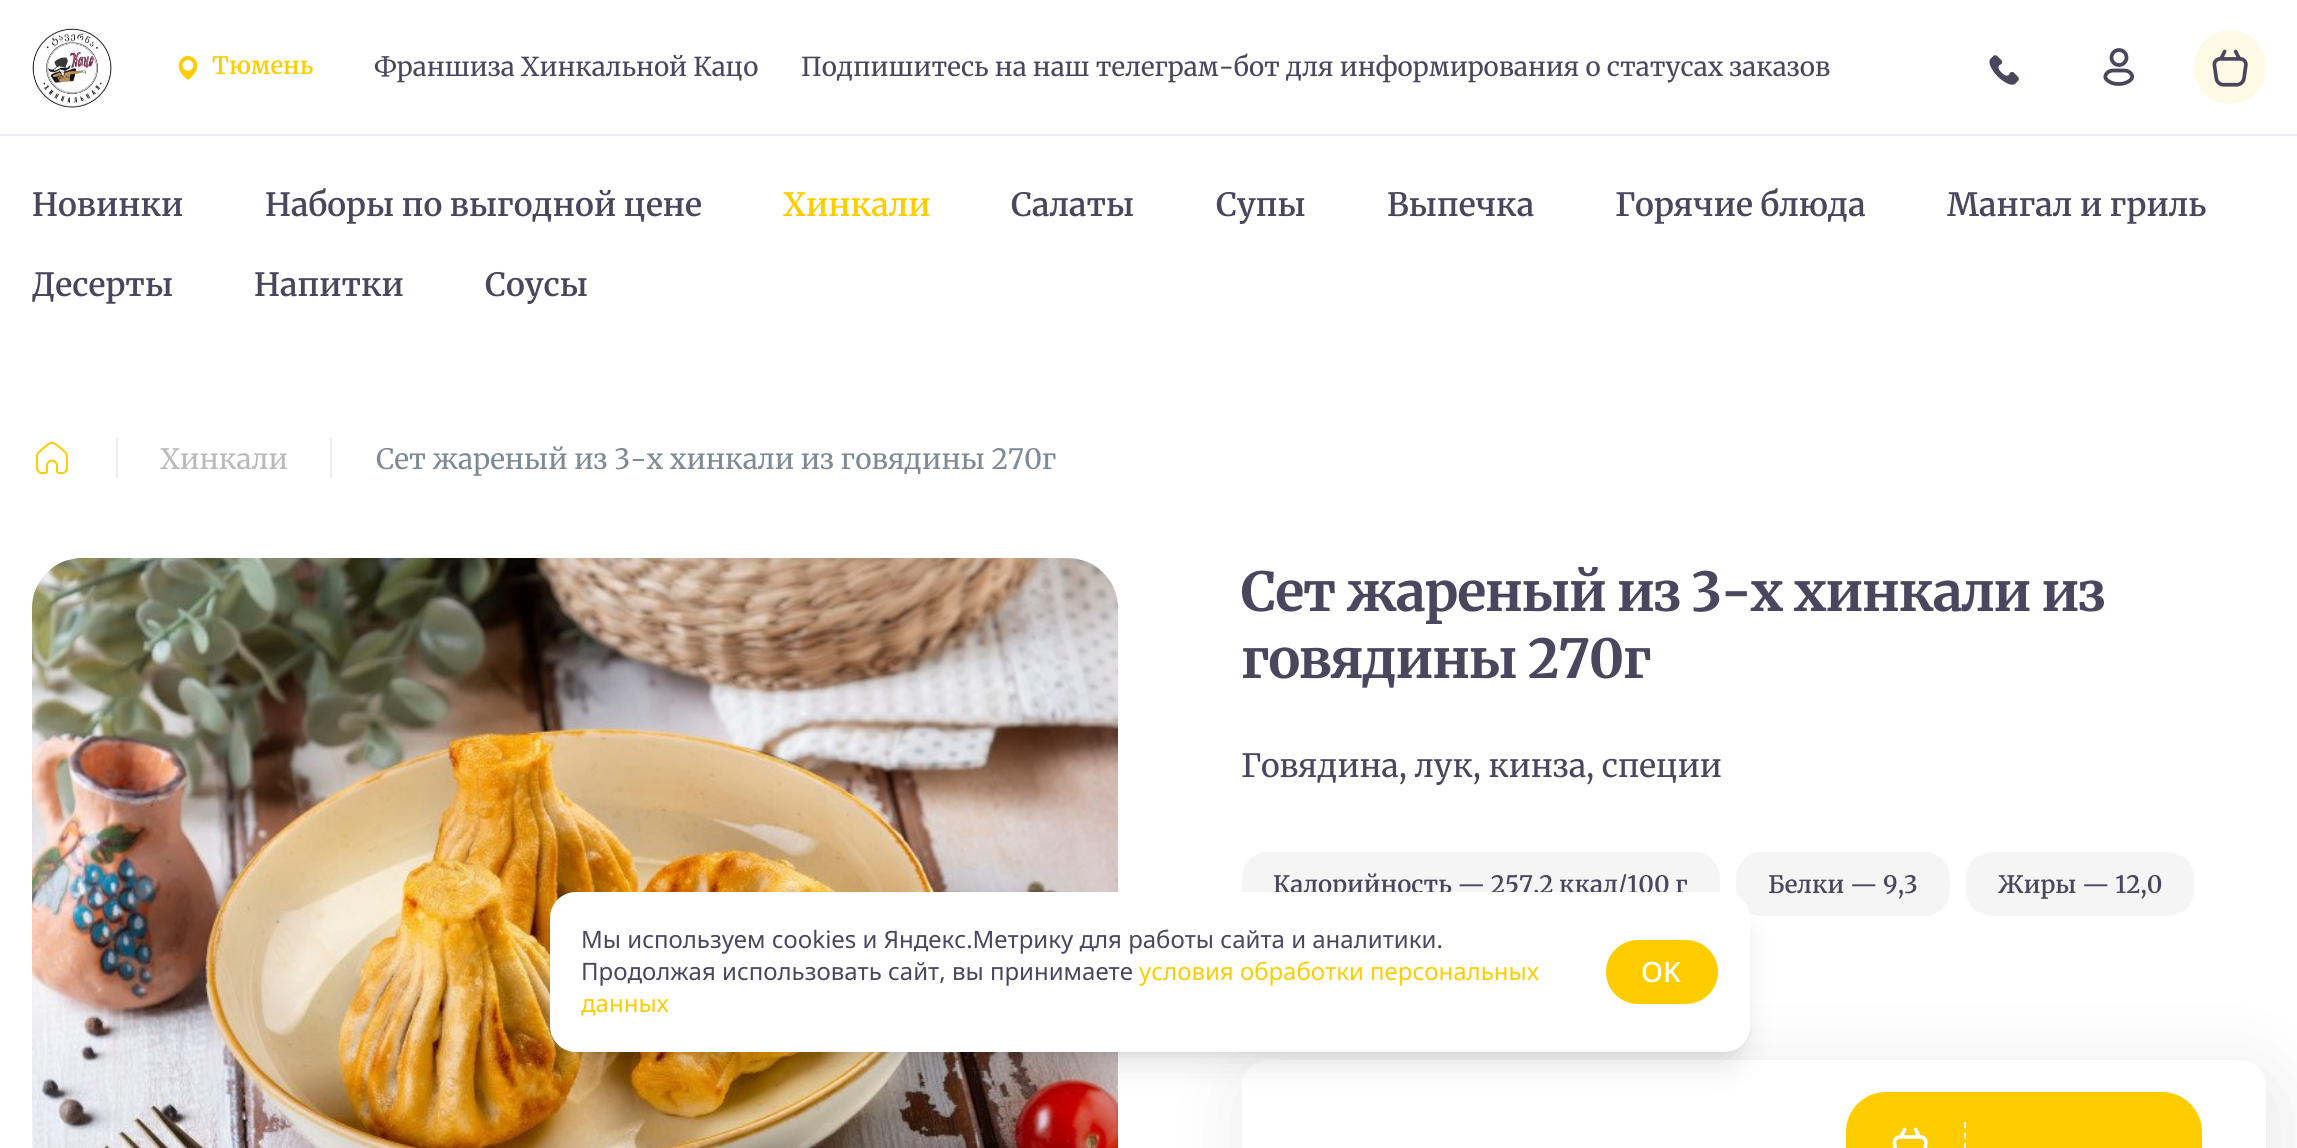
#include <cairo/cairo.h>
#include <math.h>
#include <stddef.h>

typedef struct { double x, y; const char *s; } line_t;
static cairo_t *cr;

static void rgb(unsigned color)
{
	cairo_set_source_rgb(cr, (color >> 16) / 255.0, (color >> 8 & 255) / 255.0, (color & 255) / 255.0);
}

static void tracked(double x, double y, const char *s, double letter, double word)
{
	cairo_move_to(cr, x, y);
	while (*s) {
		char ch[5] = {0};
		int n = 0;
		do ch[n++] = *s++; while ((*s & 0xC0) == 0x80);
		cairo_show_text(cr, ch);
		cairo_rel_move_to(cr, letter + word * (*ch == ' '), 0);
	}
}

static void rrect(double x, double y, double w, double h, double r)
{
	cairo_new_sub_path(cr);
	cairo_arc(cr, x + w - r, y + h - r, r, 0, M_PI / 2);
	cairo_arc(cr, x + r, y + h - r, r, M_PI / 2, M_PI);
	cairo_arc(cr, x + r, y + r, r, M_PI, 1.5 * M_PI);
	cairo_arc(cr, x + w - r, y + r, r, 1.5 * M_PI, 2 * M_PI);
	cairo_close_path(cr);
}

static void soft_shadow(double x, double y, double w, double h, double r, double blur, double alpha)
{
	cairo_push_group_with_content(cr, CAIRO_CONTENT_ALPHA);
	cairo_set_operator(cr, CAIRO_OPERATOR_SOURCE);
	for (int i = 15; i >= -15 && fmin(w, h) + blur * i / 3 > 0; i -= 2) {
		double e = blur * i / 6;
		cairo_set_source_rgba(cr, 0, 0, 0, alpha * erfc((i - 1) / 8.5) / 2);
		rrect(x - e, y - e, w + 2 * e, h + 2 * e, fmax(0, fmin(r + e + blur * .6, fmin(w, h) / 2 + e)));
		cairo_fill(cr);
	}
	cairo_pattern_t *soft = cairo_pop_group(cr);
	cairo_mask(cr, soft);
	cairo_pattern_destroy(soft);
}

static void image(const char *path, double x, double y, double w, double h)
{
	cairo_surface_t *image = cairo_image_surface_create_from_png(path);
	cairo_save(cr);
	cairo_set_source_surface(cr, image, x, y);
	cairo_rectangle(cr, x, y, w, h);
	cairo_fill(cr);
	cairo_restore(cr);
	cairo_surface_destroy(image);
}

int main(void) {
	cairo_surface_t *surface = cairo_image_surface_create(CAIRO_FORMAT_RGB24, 2297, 1148);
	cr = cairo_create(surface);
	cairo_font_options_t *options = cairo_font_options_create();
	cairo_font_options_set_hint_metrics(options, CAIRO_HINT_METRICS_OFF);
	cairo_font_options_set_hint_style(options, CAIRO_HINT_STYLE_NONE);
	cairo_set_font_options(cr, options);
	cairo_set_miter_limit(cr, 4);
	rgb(0xffffff);
	cairo_paint(cr);
	rgb(0xebeef0);
	cairo_rectangle(cr, 0, 134, 2297, 2);
	cairo_fill(cr);
	image("img/1.png", 32, 28, 80, 80);
	image("img/2.png", 178, 56, 20, 24);
	image("img/3.png", 1989, 55, 30, 30);
	cairo_arc(cr, 2119, 57.5, 7.5, 0, 2 * M_PI);
	rgb(0x4a465d);
	cairo_set_line_width(cr, 3.8);
	cairo_stroke(cr);
	cairo_new_path(cr);
	cairo_move_to(cr, 2124.5, 70.5);
	cairo_line_to(cr, 2113, 70.5);
	cairo_curve_to(cr, 2108, 70.5, 2103, 75.5, 2106.5, 79.5);
	cairo_curve_to(cr, 2109, 82, 2113, 84, 2118.5, 84);
	cairo_curve_to(cr, 2124.5, 84, 2128.5, 82, 2131, 79.5);
	cairo_curve_to(cr, 2134.5, 75.5, 2129.5, 70.5, 2124.5, 70.5);
	cairo_close_path(cr);
	cairo_stroke(cr);
	rgb(0xfffae6);
	rrect(2194, 30, 72, 74, 36);
	cairo_fill(cr);
	image("img/4.png", 2212, 49, 36, 38);
	image("img/5.png", 36, 442, 32, 32);
	rgb(0xebeef0);
	cairo_rectangle(cr, 116, 438, 2, 40);
	cairo_fill(cr);
	cairo_rectangle(cr, 330, 438, 2, 40);
	cairo_fill(cr);
	image("img/6.png", 32, 558, 1086, 590);
	rgb(0xf5f5f5);
	rrect(1242, 852, 478, 64, 26);
	cairo_fill(cr);
	rrect(1736, 852, 214, 64, 26);
	cairo_fill(cr);
	rrect(1966, 852, 228, 64, 26);
	cairo_fill(cr);
	cairo_save(cr);
	cairo_set_fill_rule(cr, CAIRO_FILL_RULE_EVEN_ODD);
	cairo_new_path(cr);
	cairo_move_to(cr, 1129, 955);
	cairo_line_to(cr, 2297, 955);
	cairo_line_to(cr, 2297, 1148);
	cairo_line_to(cr, 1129, 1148);
	cairo_close_path(cr);
	cairo_move_to(cr, 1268, 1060);
	cairo_line_to(cr, 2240, 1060);
	cairo_curve_to(cr, 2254.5, 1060, 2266, 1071.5, 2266, 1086);
	cairo_line_to(cr, 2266, 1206);
	cairo_curve_to(cr, 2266, 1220.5, 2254.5, 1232, 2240, 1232);
	cairo_line_to(cr, 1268, 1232);
	cairo_curve_to(cr, 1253.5, 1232, 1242, 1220.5, 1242, 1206);
	cairo_line_to(cr, 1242, 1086);
	cairo_curve_to(cr, 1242, 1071.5, 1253.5, 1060, 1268, 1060);
	cairo_close_path(cr);
	cairo_clip(cr);
	rgb(0x000000);
	soft_shadow(1250, 1076, 1024, 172, 26, 40, 0.1);
	cairo_restore(cr);
	rgb(0xffcc00);
	rrect(1846, 1092, 356, 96, 40);
	cairo_fill(cr);
	image("img/7.png", 1892, 1127, 36, 21);
	cairo_new_path(cr);
	cairo_move_to(cr, 1965, 1122);
	cairo_line_to(cr, 1965, 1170);
	rgb(0xebeef0);
	cairo_set_line_width(cr, 2);
	cairo_set_dash(cr, (double[]){6, 4.5}, 2, 0);
	cairo_stroke(cr);
	rgb(0x000000);
	soft_shadow(558, 908, 1184, 144, 18, 6, 0.1);
	soft_shadow(556, 918, 1188, 148, 20, 15, 0.1);
	cairo_select_font_face(cr, "Merriweather SemiBold", CAIRO_FONT_SLANT_NORMAL, CAIRO_FONT_WEIGHT_NORMAL);
	cairo_set_font_size(cr, 24);
	rgb(0xffcc00);
	cairo_move_to(cr, 212, 74);
	cairo_show_text(cr, "Тюмень");
	cairo_select_font_face(cr, "Merriweather", CAIRO_FONT_SLANT_NORMAL, CAIRO_FONT_WEIGHT_NORMAL);
	cairo_set_font_size(cr, 26);
	rgb(0x4a465d);
	cairo_move_to(cr, 374, 76);
	cairo_show_text(cr, "Франшиза Хинкальной Кацо");
	cairo_move_to(cr, 801, 76);
	cairo_show_text(cr, "Подпишитесь на наш телеграм-бот для информирования о статусах заказов");
	cairo_select_font_face(cr, "Merriweather SemiBold", CAIRO_FONT_SLANT_NORMAL, CAIRO_FONT_WEIGHT_NORMAL);
	cairo_set_font_size(cr, 32);
	cairo_move_to(cr, 32, 216);
	cairo_show_text(cr, "Новинки");
	cairo_move_to(cr, 265, 216);
	cairo_show_text(cr, "Наборы по выгодной цене");
	rgb(0xffcc00);
	cairo_move_to(cr, 783, 216);
	cairo_show_text(cr, "Хинкали");
	rgb(0x4a465d);
	{
		static const line_t items[] = {
			{1011, 216, "Салаты"},
			{1216, 216, "Супы"},
			{1387, 216, "Выпечка"},
			{1615, 216, "Горячие блюда"},
			{1947, 216, "Мангал и гриль"},
			{32, 296, "Десерты"},
			{254, 296, "Напитки"},
			{485, 296, "Соусы"},
		};
		for (size_t i = 0; i < sizeof items / sizeof *items; i++) {
			cairo_move_to(cr, items[i].x, items[i].y);
			cairo_show_text(cr, items[i].s);
		}
	}
	cairo_select_font_face(cr, "Merriweather", CAIRO_FONT_SLANT_NORMAL, CAIRO_FONT_WEIGHT_NORMAL);
	cairo_set_font_size(cr, 28);
	rgb(0xbababa);
	cairo_move_to(cr, 160, 469);
	cairo_show_text(cr, "Хинкали");
	rgb(0x7e8a95);
	cairo_move_to(cr, 376, 469);
	cairo_show_text(cr, "Сет жареный из 3-х хинкали из говядины 270г");
	cairo_select_font_face(cr, "Merriweather", CAIRO_FONT_SLANT_NORMAL, CAIRO_FONT_WEIGHT_BOLD);
	cairo_set_font_size(cr, 53.75);
	rgb(0x4a465d);
	tracked(1241, 611, "Сет жареный из 3-х хинкали из", -1.35, 0);
	tracked(1241, 678, "говядины 270г", -1.35, 0);
	cairo_select_font_face(cr, "Merriweather", CAIRO_FONT_SLANT_NORMAL, CAIRO_FONT_WEIGHT_NORMAL);
	cairo_set_font_size(cr, 32);
	cairo_move_to(cr, 1241, 777);
	cairo_show_text(cr, "Говядина, лук, кинза, специи");
	cairo_select_font_face(cr, "Merriweather SemiBold", CAIRO_FONT_SLANT_NORMAL, CAIRO_FONT_WEIGHT_NORMAL);
	cairo_set_font_size(cr, 24);
	{
		static const line_t items[] = {
			{1273, 893, "Калорийность — 257,2 ккал/100 г"},
			{1768, 893, "Белки — 9,3"},
			{1998, 893, "Жиры — 12,0"},
		};
		for (size_t i = 0; i < sizeof items / sizeof *items; i++) {
			cairo_move_to(cr, items[i].x, items[i].y);
			cairo_show_text(cr, items[i].s);
		}
	}
	rgb(0xffffff);
	rrect(550, 892, 1200, 160, 26);
	cairo_fill(cr);
	cairo_select_font_face(cr, "Noto Sans", CAIRO_FONT_SLANT_NORMAL, CAIRO_FONT_WEIGHT_NORMAL);
	rgb(0x4a465d);
	cairo_move_to(cr, 581, 948);
	cairo_show_text(cr, "Мы используем cookies и Яндекс.Метрику для работы сайта и аналитики.");
	cairo_move_to(cr, 581, 980);
	cairo_show_text(cr, "Продолжая использовать сайт, вы принимаете");
	rgb(0xffcc00);
	cairo_move_to(cr, 1139, 980);
	cairo_show_text(cr, "условия обработки персональных");
	cairo_move_to(cr, 581, 1012);
	cairo_show_text(cr, "данных");
	rrect(1606, 940, 112, 64, 32);
	cairo_fill(cr);
	cairo_select_font_face(cr, "Noto Sans Medium", CAIRO_FONT_SLANT_NORMAL, CAIRO_FONT_WEIGHT_NORMAL);
	cairo_set_font_size(cr, 28);
	rgb(0xffffff);
	cairo_move_to(cr, 1641, 982);
	cairo_show_text(cr, "OK");
	cairo_surface_write_to_png(surface, "page.png");
	cairo_font_options_destroy(options);
	cairo_destroy(cr);
	cairo_surface_destroy(surface);
	return 0;
}
